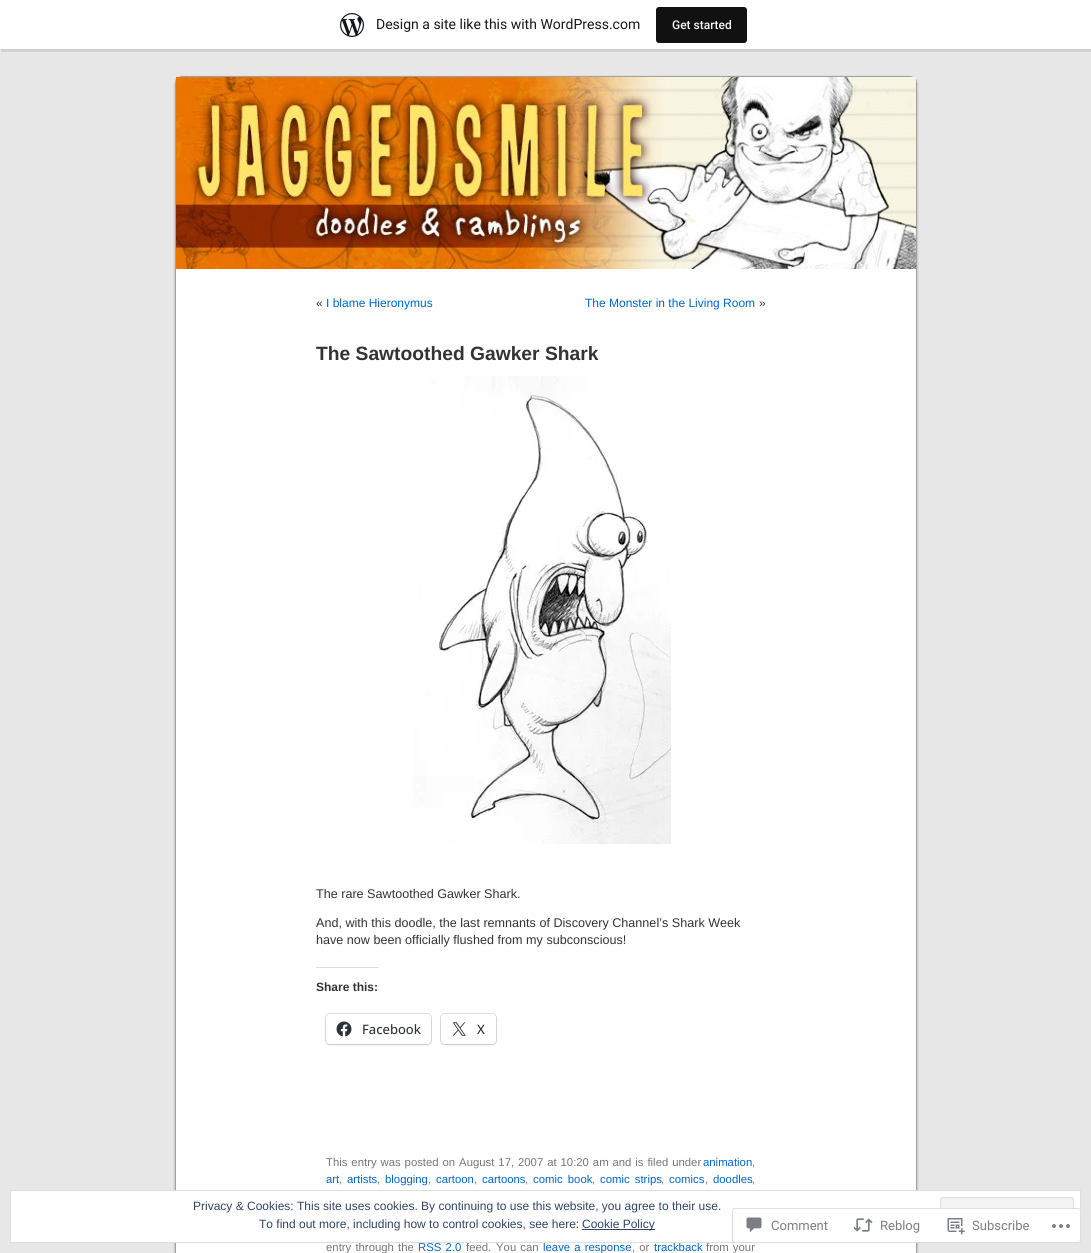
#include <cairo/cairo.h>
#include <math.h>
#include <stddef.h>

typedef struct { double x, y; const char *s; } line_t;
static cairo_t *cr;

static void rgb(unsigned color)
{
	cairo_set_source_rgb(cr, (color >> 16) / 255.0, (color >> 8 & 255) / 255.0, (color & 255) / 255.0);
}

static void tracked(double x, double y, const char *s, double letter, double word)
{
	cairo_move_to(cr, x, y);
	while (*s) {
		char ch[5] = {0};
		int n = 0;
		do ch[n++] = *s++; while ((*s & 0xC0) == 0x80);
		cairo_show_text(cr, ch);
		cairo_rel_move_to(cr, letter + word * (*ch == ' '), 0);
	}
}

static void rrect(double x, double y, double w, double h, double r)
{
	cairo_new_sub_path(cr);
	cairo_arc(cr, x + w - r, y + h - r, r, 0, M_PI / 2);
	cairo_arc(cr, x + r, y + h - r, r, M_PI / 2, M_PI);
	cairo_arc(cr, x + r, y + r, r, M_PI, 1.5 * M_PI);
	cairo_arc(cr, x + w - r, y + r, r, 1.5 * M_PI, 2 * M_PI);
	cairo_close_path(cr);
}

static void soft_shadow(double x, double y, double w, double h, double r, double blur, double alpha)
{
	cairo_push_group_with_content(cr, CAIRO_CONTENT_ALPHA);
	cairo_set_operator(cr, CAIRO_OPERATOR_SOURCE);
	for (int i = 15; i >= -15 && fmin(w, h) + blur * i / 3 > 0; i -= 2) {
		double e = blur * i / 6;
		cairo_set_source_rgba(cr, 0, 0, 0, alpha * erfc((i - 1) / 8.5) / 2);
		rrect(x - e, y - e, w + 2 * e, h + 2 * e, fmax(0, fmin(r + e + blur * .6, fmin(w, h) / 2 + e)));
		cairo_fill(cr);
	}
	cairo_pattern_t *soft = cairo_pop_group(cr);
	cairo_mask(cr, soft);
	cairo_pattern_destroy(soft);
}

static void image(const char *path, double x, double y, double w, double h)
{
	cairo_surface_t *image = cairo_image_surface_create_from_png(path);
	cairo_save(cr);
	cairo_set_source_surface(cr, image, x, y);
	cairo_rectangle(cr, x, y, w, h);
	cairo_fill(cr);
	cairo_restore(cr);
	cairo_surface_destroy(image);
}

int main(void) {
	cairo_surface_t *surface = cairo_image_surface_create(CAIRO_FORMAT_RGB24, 1091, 1253);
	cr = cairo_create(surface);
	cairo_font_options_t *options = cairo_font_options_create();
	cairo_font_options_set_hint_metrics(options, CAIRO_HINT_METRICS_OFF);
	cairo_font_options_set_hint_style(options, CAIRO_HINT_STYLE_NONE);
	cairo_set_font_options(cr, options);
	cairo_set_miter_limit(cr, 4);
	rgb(0xe7e7e7);
	cairo_paint(cr);
	rgb(0x000000);
	soft_shadow(0, 1, 1091, 49, 0, 1, 0.05);
	cairo_set_source_rgba(cr, 0, 0, 0, 0.08);
	cairo_new_path(cr);
	cairo_move_to(cr, 1, 49);
	cairo_line_to(cr, 1, 52);
	cairo_line_to(cr, 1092, 52);
	cairo_line_to(cr, 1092, 3);
	cairo_line_to(cr, 1091, 3);
	cairo_line_to(cr, 1091, 49);
	cairo_close_path(cr);
	cairo_fill(cr);
	rgb(0xffffff);
	cairo_rectangle(cr, 0, 0, 1091, 49);
	cairo_fill(cr);
	image("img/1.png", 340, 13, 24, 24);
	rgb(0x111111);
	rrect(656, 7, 91, 36, 3);
	cairo_fill(cr);
	image("img/2.png", 173, 269, 746, 984);
	image("img/3.png", 173, 69, 746, 200);
	image("img/4.png", 176, 77, 740, 192);
	image("img/5.png", 413, 376, 258, 468);
	rgb(0xdcdcde);
	cairo_rectangle(cr, 316, 967, 62, 1);
	cairo_fill(cr);
	rrect(325.5, 1013.5, 106, 31, 4.5);
	rgb(0xe0e0e0);
	cairo_set_line_width(cr, 1);
	cairo_stroke(cr);
	rgb(0x000000);
	soft_shadow(326, 1015, 105, 30, 4, 1, 0.12);
	rgb(0xffffff);
	rrect(326, 1014, 105, 30, 4);
	cairo_fill(cr);
	image("img/6.png", 336, 1021, 16, 16);
	rrect(440.5, 1013.5, 56, 31, 4.5);
	rgb(0xe0e0e0);
	cairo_stroke(cr);
	rgb(0x000000);
	soft_shadow(441, 1015, 55, 30, 4, 1, 0.12);
	rgb(0xffffff);
	rrect(441, 1014, 55, 30, 4);
	cairo_fill(cr);
	image("img/7.png", 452, 1022, 14, 14);
	cairo_select_font_face(cr, "Roboto", CAIRO_FONT_SLANT_NORMAL, CAIRO_FONT_WEIGHT_NORMAL);
	cairo_set_font_size(cr, 14);
	rgb(0x171717);
	cairo_move_to(cr, 376, 29);
	cairo_show_text(cr, "Design a site like this with WordPress.com");
	cairo_select_font_face(cr, "Roboto Medium", CAIRO_FONT_SLANT_NORMAL, CAIRO_FONT_WEIGHT_NORMAL);
	cairo_set_font_size(cr, 12);
	rgb(0xf6f7f7);
	cairo_move_to(cr, 672, 29);
	cairo_show_text(cr, "Get started");
	cairo_select_font_face(cr, "Liberation Sans", CAIRO_FONT_SLANT_NORMAL, CAIRO_FONT_WEIGHT_NORMAL);
	rgb(0x333333);
	cairo_move_to(cr, 316, 307);
	cairo_show_text(cr, "«");
	rgb(0x0066cc);
	cairo_move_to(cr, 326, 307);
	cairo_show_text(cr, "I blame Hieronymus");
	cairo_move_to(cr, 585, 307);
	cairo_show_text(cr, "The Monster in the Living Room");
	rgb(0x333333);
	cairo_move_to(cr, 759, 307);
	cairo_show_text(cr, "»");
	cairo_select_font_face(cr, "Liberation Sans", CAIRO_FONT_SLANT_NORMAL, CAIRO_FONT_WEIGHT_BOLD);
	cairo_set_font_size(cr, 19.25);
	cairo_move_to(cr, 316, 360);
	cairo_show_text(cr, "The Sawtoothed Gawker Shark");
	cairo_select_font_face(cr, "Liberation Sans", CAIRO_FONT_SLANT_NORMAL, CAIRO_FONT_WEIGHT_NORMAL);
	cairo_set_font_size(cr, 12.6);
	{
		static const line_t items[] = {
			{316, 898, "The rare Sawtoothed Gawker Shark."},
			{316, 927, "And, with this doodle, the last remnants of Discovery Channel’s Shark Week"},
			{316, 944, "have now been officially flushed from my subconscious!"},
		};
		for (size_t i = 0; i < sizeof items / sizeof *items; i++) {
			cairo_move_to(cr, items[i].x, items[i].y);
			cairo_show_text(cr, items[i].s);
		}
	}
	cairo_select_font_face(cr, "Liberation Sans", CAIRO_FONT_SLANT_NORMAL, CAIRO_FONT_WEIGHT_BOLD);
	cairo_set_font_size(cr, 12);
	cairo_move_to(cr, 316, 991);
	cairo_show_text(cr, "Share this:");
	cairo_select_font_face(cr, "Open Sans Medium", CAIRO_FONT_SLANT_NORMAL, CAIRO_FONT_WEIGHT_NORMAL);
	cairo_set_font_size(cr, 13);
	rgb(0x2c3338);
	cairo_move_to(cr, 362, 1034);
	cairo_show_text(cr, "Facebook");
	cairo_move_to(cr, 477, 1034);
	cairo_show_text(cr, "X");
	cairo_select_font_face(cr, "Liberation Sans", CAIRO_FONT_SLANT_NORMAL, CAIRO_FONT_WEIGHT_NORMAL);
	cairo_set_font_size(cr, 11.35);
	rgb(0x777777);
	tracked(326, 1166, "This entry was posted on August 17, 2007 at 10:20 am and is filed under", 0, 0.75);
	rgb(0x0066cc);
	cairo_move_to(cr, 703, 1166);
	cairo_show_text(cr, "animation");
	rgb(0x777777);
	cairo_move_to(cr, 752, 1166);
	cairo_show_text(cr, ",");
	rgb(0x0066cc);
	cairo_move_to(cr, 326, 1183);
	cairo_show_text(cr, "art");
	rgb(0x777777);
	cairo_move_to(cr, 339, 1183);
	cairo_show_text(cr, ",");
	rgb(0x0066cc);
	cairo_move_to(cr, 347, 1183);
	cairo_show_text(cr, "artists");
	rgb(0x777777);
	cairo_move_to(cr, 377, 1183);
	cairo_show_text(cr, ",");
	rgb(0x0066cc);
	cairo_move_to(cr, 385, 1183);
	cairo_show_text(cr, "blogging");
	rgb(0x777777);
	cairo_move_to(cr, 428, 1183);
	cairo_show_text(cr, ",");
	rgb(0x0066cc);
	cairo_move_to(cr, 436, 1183);
	cairo_show_text(cr, "cartoon");
	rgb(0x777777);
	cairo_move_to(cr, 474, 1183);
	cairo_show_text(cr, ",");
	rgb(0x0066cc);
	cairo_move_to(cr, 482, 1183);
	cairo_show_text(cr, "cartoons");
	rgb(0x777777);
	cairo_move_to(cr, 525, 1183);
	cairo_show_text(cr, ",");
	rgb(0x0066cc);
	tracked(533, 1183, "comic book", 0, 2);
	rgb(0x777777);
	cairo_move_to(cr, 592, 1183);
	cairo_show_text(cr, ",");
	rgb(0x0066cc);
	tracked(600, 1183, "comic strips", 0, 2);
	rgb(0x777777);
	cairo_move_to(cr, 661, 1183);
	cairo_show_text(cr, ",");
	rgb(0x0066cc);
	cairo_move_to(cr, 669, 1183);
	cairo_show_text(cr, "comics");
	rgb(0x777777);
	cairo_move_to(cr, 705, 1183);
	cairo_show_text(cr, ",");
	rgb(0x0066cc);
	cairo_move_to(cr, 713, 1183);
	cairo_show_text(cr, "doodles");
	rgb(0x777777);
	cairo_move_to(cr, 752, 1183);
	cairo_show_text(cr, ",");
	tracked(326, 1251, "entry through the", 0, 1);
	rgb(0x0066cc);
	tracked(418, 1251, "RSS 2.0", 0, 1);
	rgb(0x777777);
	cairo_move_to(cr, 466, 1251);
	cairo_show_text(cr, "feed.");
	tracked(496, 1251, "You can", 0, 1);
	rgb(0x0066cc);
	tracked(543, 1251, "leave a response", 0, 1);
	rgb(0x777777);
	tracked(632, 1251, ", or", 0, 1);
	rgb(0x0066cc);
	cairo_move_to(cr, 654, 1251);
	cairo_show_text(cr, "trackback");
	rgb(0x777777);
	tracked(706, 1251, "from your", 0, 1);
	rgb(0xffffff);
	cairo_rectangle(cr, 10.5, 1190.5, 1070, 52);
	cairo_fill_preserve(cr);
	rgb(0xdedede);
	cairo_stroke(cr);
	cairo_set_font_size(cr, 12);
	rgb(0x2e4467);
	cairo_move_to(cr, 193, 1210);
	cairo_show_text(cr, "Privacy & Cookies: This site uses cookies. By continuing to use this website, you agree to their use.");
	rgb(0xf3f3f3);
	rrect(940.5, 1197.5, 133, 38, 2.5);
	cairo_fill_preserve(cr);
	rgb(0xdedede);
	cairo_stroke(cr);
	rgb(0x2e4467);
	cairo_move_to(cr, 259, 1228);
	cairo_show_text(cr, "To find out more, including how to control cookies, see here:");
	cairo_rectangle(cr, 582, 1229, 73, 1);
	cairo_fill(cr);
	cairo_move_to(cr, 582, 1228);
	cairo_show_text(cr, "Cookie Policy");
	cairo_set_source_rgba(cr, 1, 1, 1, 0.98);
	rrect(732, 1208, 349, 35, 3);
	cairo_fill(cr);
	rrect(732.5, 1208.5, 348, 34, 2.5);
	cairo_set_source_rgba(cr, 0.863, 0.863, 0.871, 0.98);
	cairo_stroke(cr);
	image("img/8.png", 746, 1217, 16, 16);
	cairo_select_font_face(cr, "Roboto", CAIRO_FONT_SLANT_NORMAL, CAIRO_FONT_WEIGHT_NORMAL);
	cairo_set_font_size(cr, 13);
	rgb(0x7b7f85);
	cairo_move_to(cr, 771, 1230);
	cairo_show_text(cr, "Comment");
	image("img/9.png", 853, 1218, 20, 14);
	cairo_move_to(cr, 880, 1230);
	cairo_show_text(cr, "Reblog");
	image("img/10.png", 947, 1218, 18, 17);
	cairo_move_to(cr, 972, 1230);
	cairo_show_text(cr, "Subscribe");
	image("img/11.png", 1052, 1224, 18, 4);
	cairo_surface_write_to_png(surface, "page.png");
	cairo_font_options_destroy(options);
	cairo_destroy(cr);
	cairo_surface_destroy(surface);
	return 0;
}
